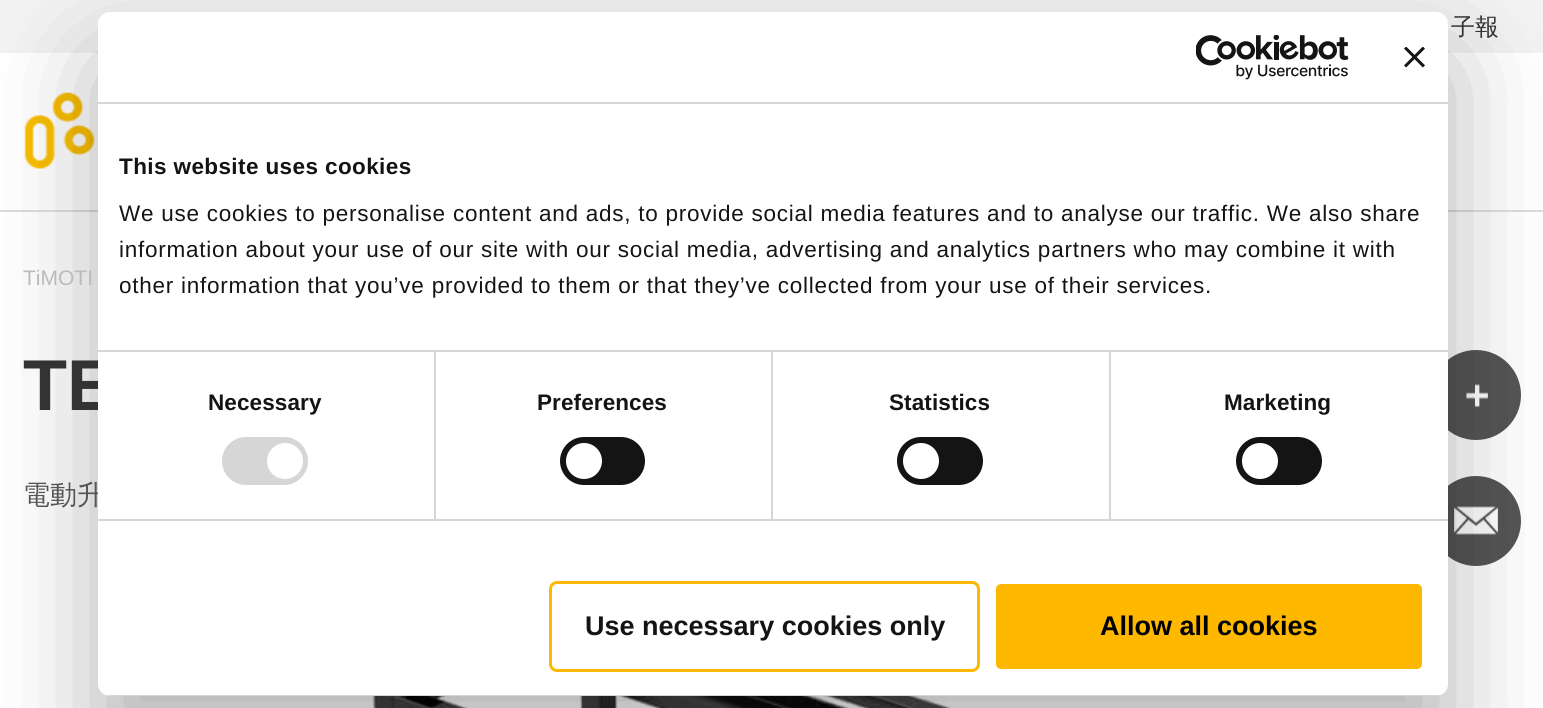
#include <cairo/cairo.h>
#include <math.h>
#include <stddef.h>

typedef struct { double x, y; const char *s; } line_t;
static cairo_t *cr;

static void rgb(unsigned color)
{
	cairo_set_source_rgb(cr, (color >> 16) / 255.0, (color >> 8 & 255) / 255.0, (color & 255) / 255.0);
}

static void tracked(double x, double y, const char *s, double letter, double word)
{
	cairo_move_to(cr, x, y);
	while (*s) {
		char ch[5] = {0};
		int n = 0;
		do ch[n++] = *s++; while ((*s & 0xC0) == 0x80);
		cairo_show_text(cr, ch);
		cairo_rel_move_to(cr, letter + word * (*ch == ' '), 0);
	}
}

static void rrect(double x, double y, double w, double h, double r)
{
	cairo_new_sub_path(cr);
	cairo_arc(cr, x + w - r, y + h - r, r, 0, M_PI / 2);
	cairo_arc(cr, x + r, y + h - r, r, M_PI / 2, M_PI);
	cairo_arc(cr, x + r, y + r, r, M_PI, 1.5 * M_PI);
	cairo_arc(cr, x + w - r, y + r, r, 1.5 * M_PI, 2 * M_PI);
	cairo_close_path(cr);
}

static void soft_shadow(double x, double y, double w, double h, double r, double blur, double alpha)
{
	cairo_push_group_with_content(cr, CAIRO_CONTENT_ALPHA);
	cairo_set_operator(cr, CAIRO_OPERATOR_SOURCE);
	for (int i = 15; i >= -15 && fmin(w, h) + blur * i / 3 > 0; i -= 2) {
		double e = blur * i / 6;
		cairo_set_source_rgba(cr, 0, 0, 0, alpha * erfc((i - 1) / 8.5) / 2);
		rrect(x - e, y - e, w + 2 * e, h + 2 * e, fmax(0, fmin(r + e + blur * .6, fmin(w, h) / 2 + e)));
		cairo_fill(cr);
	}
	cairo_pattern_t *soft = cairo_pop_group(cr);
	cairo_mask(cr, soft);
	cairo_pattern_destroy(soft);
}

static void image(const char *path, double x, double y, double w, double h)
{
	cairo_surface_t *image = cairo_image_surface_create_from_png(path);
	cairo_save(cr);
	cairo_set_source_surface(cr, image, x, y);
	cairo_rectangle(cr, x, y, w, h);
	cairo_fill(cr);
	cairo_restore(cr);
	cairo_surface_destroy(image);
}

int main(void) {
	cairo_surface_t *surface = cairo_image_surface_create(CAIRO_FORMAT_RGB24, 1543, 708);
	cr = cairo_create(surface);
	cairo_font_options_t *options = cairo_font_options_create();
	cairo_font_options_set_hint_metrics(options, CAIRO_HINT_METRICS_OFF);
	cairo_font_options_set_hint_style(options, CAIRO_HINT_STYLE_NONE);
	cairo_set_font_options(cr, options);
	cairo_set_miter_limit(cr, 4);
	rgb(0xffffff);
	cairo_paint(cr);
	rgb(0xf2f2f2);
	cairo_rectangle(cr, 0, 0, 1543, 53);
	cairo_fill(cr);
	rgb(0xdddddd);
	cairo_rectangle(cr, 0, 210, 1543, 2);
	cairo_fill(cr);
	image("img/1.png", 24, 92, 71, 77);
	image("img/2.png", 370, 696, 606, 12);
	rgb(0x555555);
	cairo_arc(cr, 1476, 395, 45, 0, 2 * M_PI);
	cairo_fill(cr);
	image("img/3.png", 1466, 384, 22, 23);
	cairo_arc(cr, 1476, 521, 45, 0, 2 * M_PI);
	cairo_fill(cr);
	image("img/4.png", 1454, 506, 44, 29);
	rgb(0x000000);
	soft_shadow(98, 60, 1350, 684, 12, 51, 0.3);
	cairo_select_font_face(cr, "WenQuanYi Zen Hei Medium", CAIRO_FONT_SLANT_NORMAL, CAIRO_FONT_WEIGHT_NORMAL);
	cairo_set_font_size(cr, 24);
	rgb(0x333333);
	cairo_move_to(cr, 1451, 35);
	cairo_show_text(cr, "子報");
	cairo_select_font_face(cr, "Liberation Sans", CAIRO_FONT_SLANT_NORMAL, CAIRO_FONT_WEIGHT_NORMAL);
	cairo_set_font_size(cr, 21);
	rgb(0xbbbbbb);
	cairo_move_to(cr, 23, 285);
	cairo_show_text(cr, "TiMOTI");
	cairo_select_font_face(cr, "Liberation Sans", CAIRO_FONT_SLANT_NORMAL, CAIRO_FONT_WEIGHT_BOLD);
	cairo_set_font_size(cr, 72);
	rgb(0x333333);
	cairo_move_to(cr, 23, 410);
	cairo_show_text(cr, "TE");
	cairo_select_font_face(cr, "WenQuanYi Zen Hei Medium", CAIRO_FONT_SLANT_NORMAL, CAIRO_FONT_WEIGHT_NORMAL);
	cairo_set_font_size(cr, 27);
	rgb(0x555555);
	cairo_move_to(cr, 23, 504);
	cairo_show_text(cr, "電動升");
	rgb(0xffffff);
	rrect(98, 12, 1350, 684, 12);
	cairo_fill(cr);
	rgb(0xd6d6d6);
	cairo_rectangle(cr, 98, 102, 1350, 2);
	cairo_fill(cr);
	image("img/5.png", 1196, 35, 153, 45);
	image("img/6.png", 1404, 47, 21, 21);
	cairo_select_font_face(cr, "Liberation Sans", CAIRO_FONT_SLANT_NORMAL, CAIRO_FONT_WEIGHT_BOLD);
	cairo_set_font_size(cr, 22.5);
	rgb(0x141414);
	tracked(119, 174, "This website uses cookies", 0.4, 0);
	cairo_select_font_face(cr, "Liberation Sans", CAIRO_FONT_SLANT_NORMAL, CAIRO_FONT_WEIGHT_NORMAL);
	{
		static const line_t items[] = {
			{119, 221, "We use cookies to personalise content and ads, to provide social media features and to analyse our traffic. We also share"},
			{119, 257, "information about your use of our site with our social media, advertising and analytics partners who may combine it with"},
			{119, 293, "other information that you’ve provided to them or that they’ve collected from your use of their services."},
		};
		for (size_t i = 0; i < sizeof items / sizeof *items; i++) {
			tracked(items[i].x, items[i].y, items[i].s, 0.75, 0);
		}
	}
	rgb(0xd6d6d6);
	cairo_rectangle(cr, 98, 519, 1350, 2);
	cairo_fill(cr);
	cairo_rectangle(cr, 434, 351, 2, 168);
	cairo_fill(cr);
	cairo_select_font_face(cr, "Liberation Sans", CAIRO_FONT_SLANT_NORMAL, CAIRO_FONT_WEIGHT_BOLD);
	rgb(0x141414);
	tracked(208, 410, "Necessary", 0.1, 0);
	rgb(0xd6d6d6);
	rrect(222, 437, 86, 48, 24);
	cairo_fill(cr);
	rgb(0xffffff);
	cairo_arc(cr, 285, 461, 18, 0, 2 * M_PI);
	cairo_fill(cr);
	rgb(0xd6d6d6);
	cairo_rectangle(cr, 771, 351, 2, 168);
	cairo_fill(cr);
	rgb(0x141414);
	tracked(537, 410, "Preferences", 0.1, 0);
	rrect(560, 437, 85, 48, 24);
	cairo_fill(cr);
	rgb(0xffffff);
	cairo_arc(cr, 584, 461, 18, 0, 2 * M_PI);
	cairo_fill(cr);
	rgb(0xd6d6d6);
	cairo_rectangle(cr, 1109, 351, 2, 168);
	cairo_fill(cr);
	cairo_rectangle(cr, 98, 350, 1350, 2);
	cairo_fill(cr);
	rgb(0x141414);
	tracked(889, 410, "Statistics", 0.1, 0);
	rrect(897, 437, 86, 48, 24);
	cairo_fill(cr);
	rgb(0xffffff);
	cairo_arc(cr, 921, 461, 18, 0, 2 * M_PI);
	cairo_fill(cr);
	rgb(0x141414);
	tracked(1224, 410, "Marketing", 0.1, 0);
	rrect(1236, 437, 86, 48, 24);
	cairo_fill(cr);
	rgb(0xffffff);
	cairo_arc(cr, 1260, 461, 18, 0, 2 * M_PI);
	cairo_fill(cr);
	cairo_save(cr);
	rrect(98, 12, 1350, 684, 12);
	cairo_clip(cr);
	rgb(0xd6d6d6);
	cairo_rectangle(cr, 98, 695, 1350, 1);
	cairo_fill(cr);
	cairo_restore(cr);
	rrect(550.5, 582.5, 428, 88, 6.5);
	rgb(0xffb800);
	cairo_set_line_width(cr, 3);
	cairo_stroke(cr);
	cairo_set_font_size(cr, 27);
	rgb(0x141414);
	cairo_move_to(cr, 585, 635);
	cairo_show_text(cr, "Use necessary cookies only");
	rgb(0xffb800);
	rrect(994.5, 582.5, 429, 88, 6.5);
	cairo_fill_preserve(cr);
	rgb(0xffffff);
	cairo_stroke(cr);
	rgb(0x000000);
	cairo_move_to(cr, 1100, 635);
	cairo_show_text(cr, "Allow all cookies");
	cairo_surface_write_to_png(surface, "page.png");
	cairo_font_options_destroy(options);
	cairo_destroy(cr);
	cairo_surface_destroy(surface);
	return 0;
}
